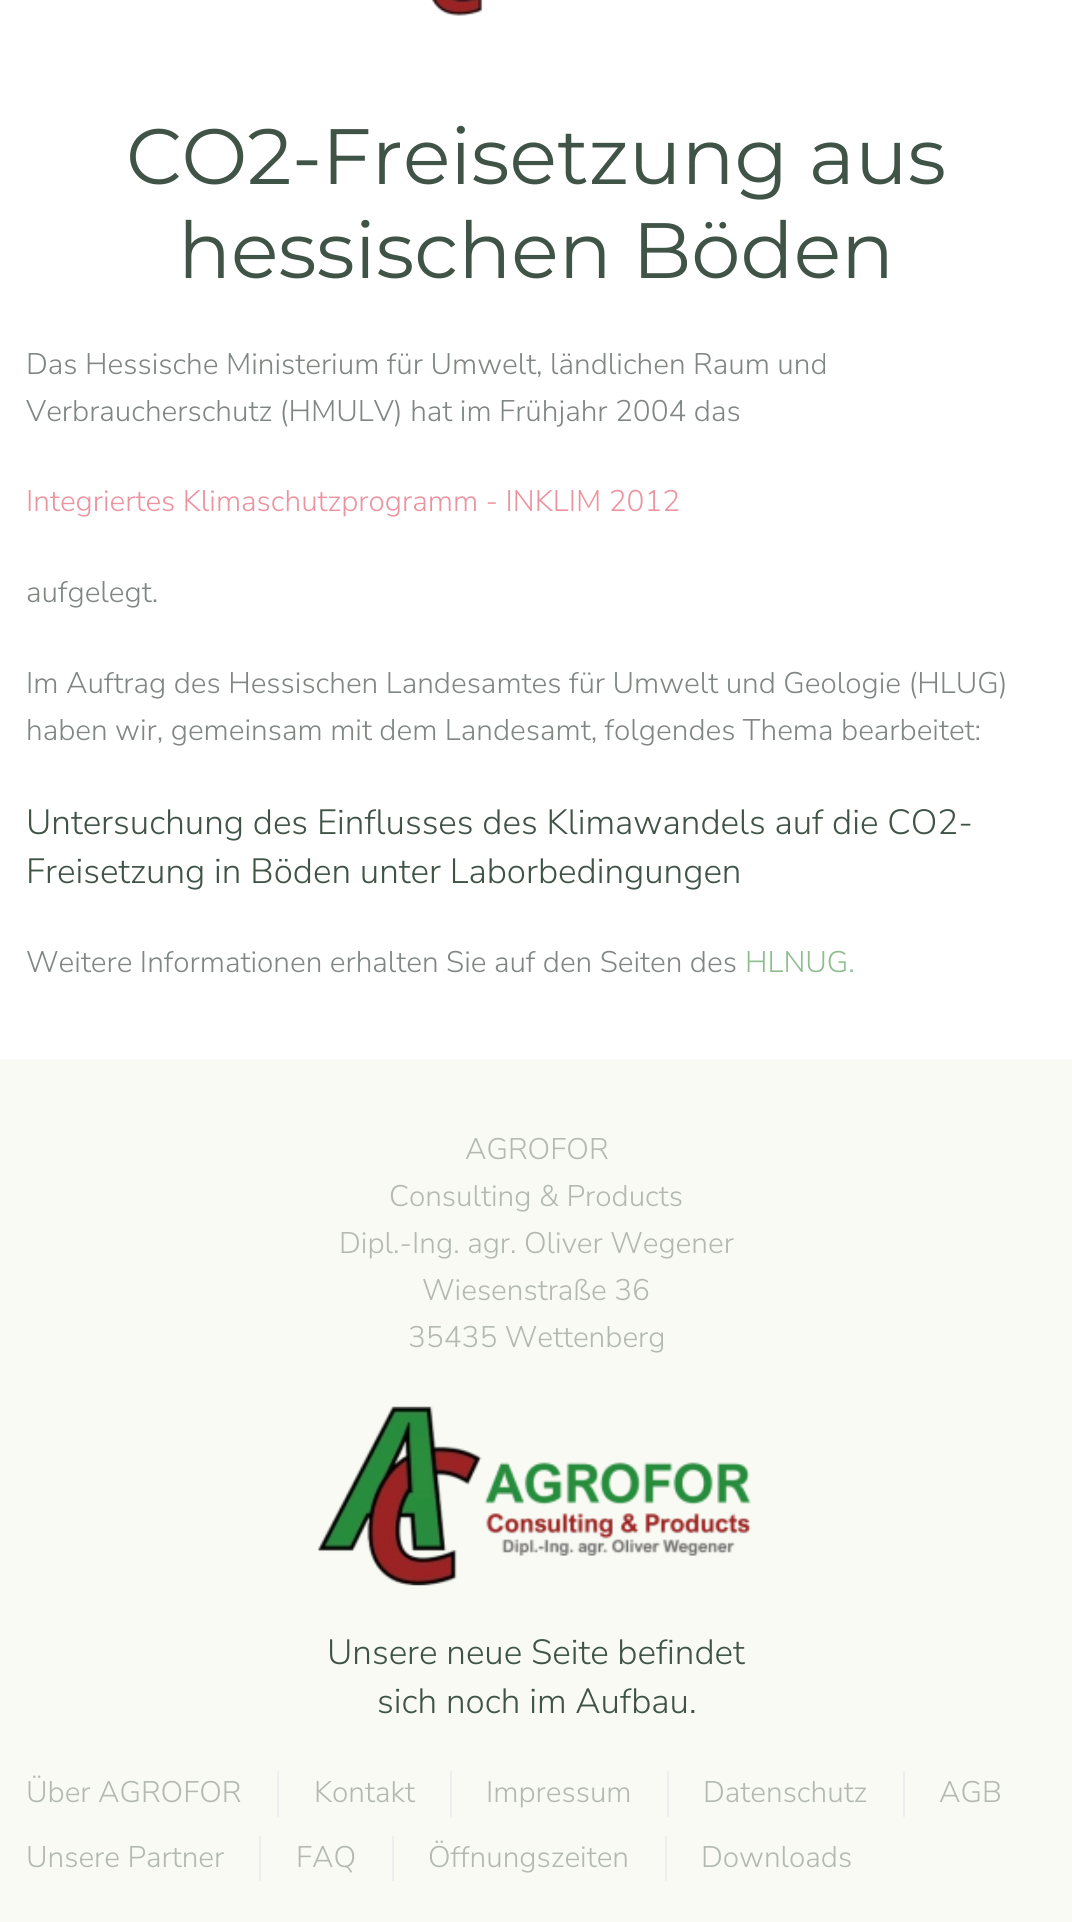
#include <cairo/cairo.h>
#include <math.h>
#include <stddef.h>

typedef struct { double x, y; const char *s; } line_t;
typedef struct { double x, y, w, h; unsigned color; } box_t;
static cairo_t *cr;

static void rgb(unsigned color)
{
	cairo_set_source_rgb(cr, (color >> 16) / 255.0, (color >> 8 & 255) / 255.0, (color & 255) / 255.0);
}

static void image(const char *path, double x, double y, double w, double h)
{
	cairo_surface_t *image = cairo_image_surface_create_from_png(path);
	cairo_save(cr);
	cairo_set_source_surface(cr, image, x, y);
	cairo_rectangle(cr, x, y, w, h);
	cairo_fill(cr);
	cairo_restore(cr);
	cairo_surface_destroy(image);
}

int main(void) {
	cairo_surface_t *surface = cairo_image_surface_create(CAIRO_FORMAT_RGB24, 1072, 1922);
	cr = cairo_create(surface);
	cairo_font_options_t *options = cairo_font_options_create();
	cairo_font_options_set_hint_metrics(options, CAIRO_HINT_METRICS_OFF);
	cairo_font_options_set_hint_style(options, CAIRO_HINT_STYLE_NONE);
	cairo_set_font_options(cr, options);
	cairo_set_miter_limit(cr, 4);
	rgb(0xffffff);
	cairo_paint(cr);
	image("img/1.png", 431, 0, 52, 16);
	rgb(0xf8faf3);
	cairo_rectangle(cr, 0, 1059, 1072, 863);
	cairo_fill(cr);
	image("img/2.png", 318, 1406, 433, 180);
	{
		static const box_t items[] = {
			{277, 1771, 2, 46, 0xeeeeee},
			{450, 1771, 2, 46, 0xeeeeee},
			{667, 1771, 2, 46, 0xeeeeee},
			{903, 1771, 2, 46, 0xeeeeee},
			{259, 1836, 2, 45, 0xeeeeee},
			{392, 1836, 2, 45, 0xeeeeee},
			{665, 1836, 2, 45, 0xeeeeee},
		};
		for (size_t i = 0; i < sizeof items / sizeof *items; i++) {
			rgb(items[i].color);
			cairo_rectangle(cr, items[i].x, items[i].y, items[i].w, items[i].h);
			cairo_fill(cr);
		}
	}
	cairo_select_font_face(cr, "Montserrat Thin", CAIRO_FONT_SLANT_NORMAL, CAIRO_FONT_WEIGHT_NORMAL);
	cairo_set_font_size(cr, 78.4);
	rgb(0x3f5347);
	cairo_move_to(cr, 126, 184);
	cairo_show_text(cr, "CO2-Freisetzung aus");
	cairo_move_to(cr, 178, 278);
	cairo_show_text(cr, "hessischen Böden");
	cairo_select_font_face(cr, "Nunito Sans ExtraLight", CAIRO_FONT_SLANT_NORMAL, CAIRO_FONT_WEIGHT_NORMAL);
	cairo_set_font_size(cr, 29.75);
	rgb(0x808682);
	cairo_move_to(cr, 26, 374);
	cairo_show_text(cr, "Das Hessische Ministerium für Umwelt, ländlichen Raum und");
	cairo_move_to(cr, 26, 421);
	cairo_show_text(cr, "Verbraucherschutz (HMULV) hat im Frühjahr 2004 das");
	rgb(0xec93a0);
	cairo_move_to(cr, 26, 511);
	cairo_show_text(cr, "Integriertes Klimaschutzprogramm - INKLIM 2012");
	rgb(0x808682);
	{
		static const line_t items[] = {
			{26, 602, "aufgelegt."},
			{26, 693, "Im Auftrag des Hessischen Landesamtes für Umwelt und Geologie (HLUG)"},
			{26, 740, "haben wir, gemeinsam mit dem Landesamt, folgendes Thema bearbeitet:"},
		};
		for (size_t i = 0; i < sizeof items / sizeof *items; i++) {
			cairo_move_to(cr, items[i].x, items[i].y);
			cairo_show_text(cr, items[i].s);
		}
	}
	cairo_set_font_size(cr, 35);
	rgb(0x3f5347);
	cairo_move_to(cr, 26, 834);
	cairo_show_text(cr, "Untersuchung des Einflusses des Klimawandels auf die CO2-");
	cairo_move_to(cr, 26, 883);
	cairo_show_text(cr, "Freisetzung in Böden unter Laborbedingungen");
	cairo_set_font_size(cr, 29.75);
	rgb(0x808682);
	cairo_move_to(cr, 26, 972);
	cairo_show_text(cr, "Weitere Informationen erhalten Sie auf den Seiten des");
	rgb(0x8fbd8f);
	cairo_move_to(cr, 745, 972);
	cairo_show_text(cr, "HLNUG.");
	rgb(0xb3b9ae);
	{
		static const line_t items[] = {
			{465, 1159, "AGROFOR"},
			{389, 1206, "Consulting & Products"},
			{339, 1253, "Dipl.-Ing. agr. Oliver Wegener"},
			{422, 1300, "Wiesenstraße 36"},
			{408, 1347, "35435 Wettenberg"},
		};
		for (size_t i = 0; i < sizeof items / sizeof *items; i++) {
			cairo_move_to(cr, items[i].x, items[i].y);
			cairo_show_text(cr, items[i].s);
		}
	}
	cairo_set_font_size(cr, 35);
	rgb(0x3f5347);
	cairo_move_to(cr, 327, 1664);
	cairo_show_text(cr, "Unsere neue Seite befindet");
	cairo_move_to(cr, 377, 1713);
	cairo_show_text(cr, "sich noch im Aufbau.");
	cairo_set_font_size(cr, 29.75);
	rgb(0xb3b9ae);
	{
		static const line_t items[] = {
			{26, 1802, "Über AGROFOR"},
			{314, 1802, "Kontakt"},
			{486, 1802, "Impressum"},
			{703, 1802, "Datenschutz"},
			{939, 1802, "AGB"},
			{26, 1867, "Unsere Partner"},
			{296, 1867, "FAQ"},
			{428, 1867, "Öffnungszeiten"},
			{701, 1867, "Downloads"},
		};
		for (size_t i = 0; i < sizeof items / sizeof *items; i++) {
			cairo_move_to(cr, items[i].x, items[i].y);
			cairo_show_text(cr, items[i].s);
		}
	}
	cairo_surface_write_to_png(surface, "page.png");
	cairo_font_options_destroy(options);
	cairo_destroy(cr);
	cairo_surface_destroy(surface);
	return 0;
}
